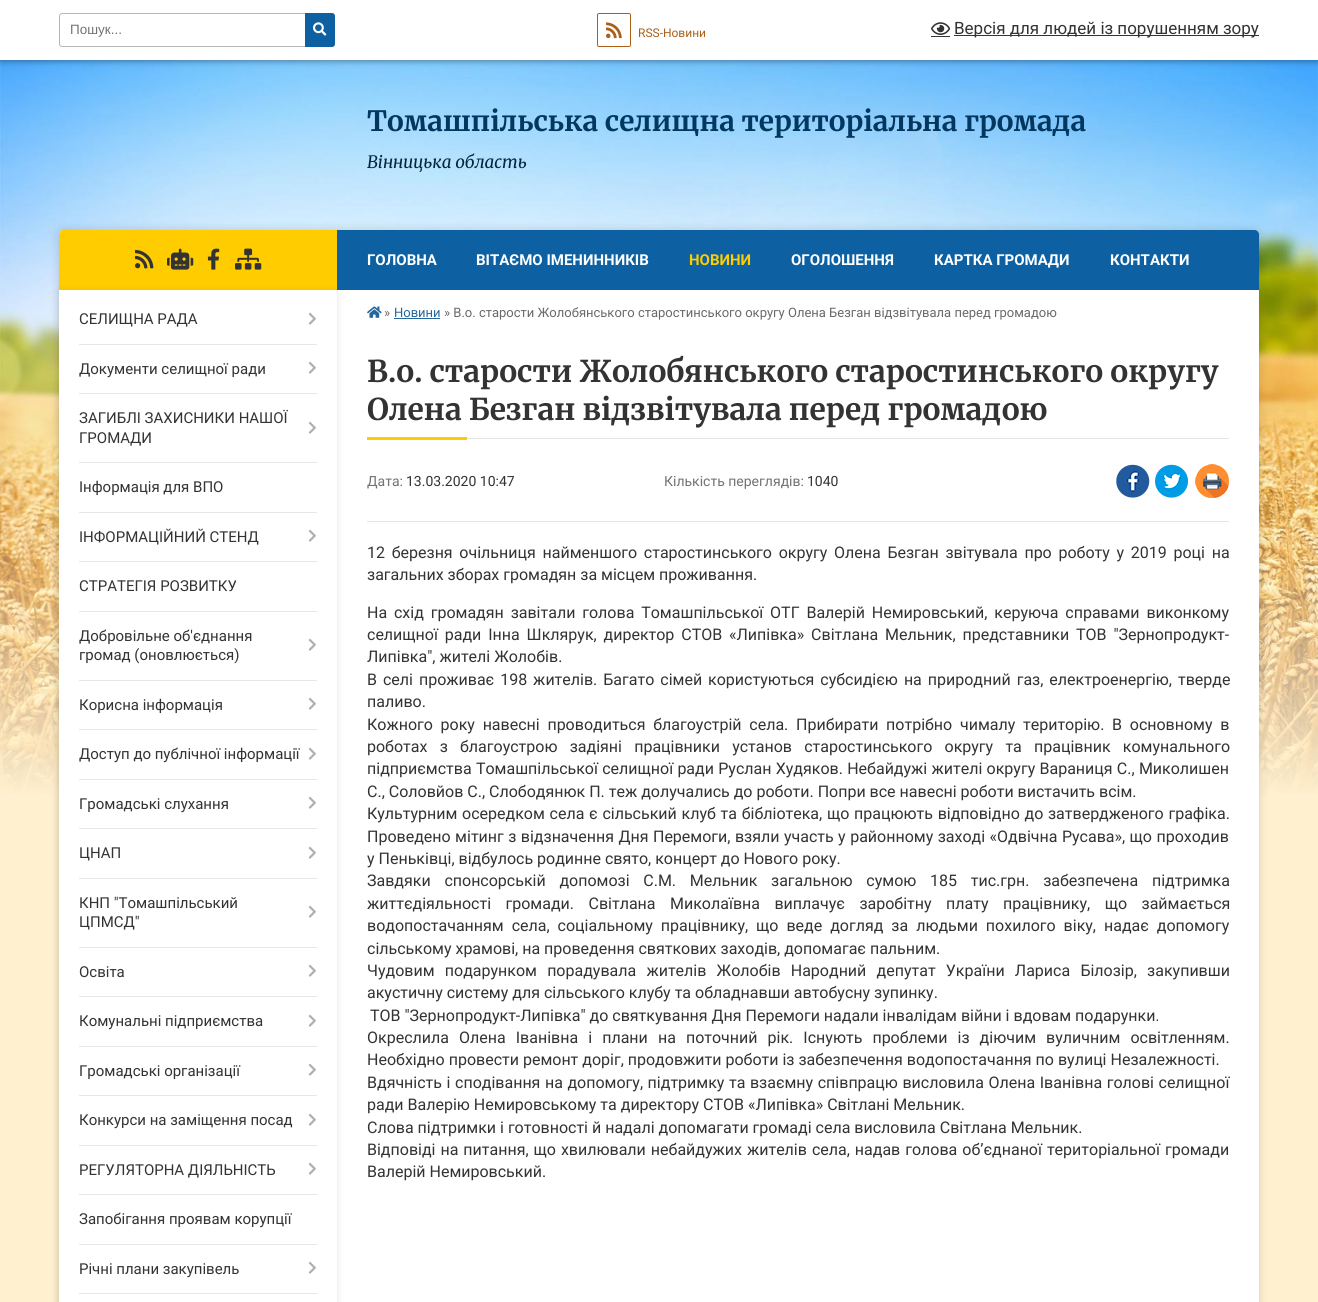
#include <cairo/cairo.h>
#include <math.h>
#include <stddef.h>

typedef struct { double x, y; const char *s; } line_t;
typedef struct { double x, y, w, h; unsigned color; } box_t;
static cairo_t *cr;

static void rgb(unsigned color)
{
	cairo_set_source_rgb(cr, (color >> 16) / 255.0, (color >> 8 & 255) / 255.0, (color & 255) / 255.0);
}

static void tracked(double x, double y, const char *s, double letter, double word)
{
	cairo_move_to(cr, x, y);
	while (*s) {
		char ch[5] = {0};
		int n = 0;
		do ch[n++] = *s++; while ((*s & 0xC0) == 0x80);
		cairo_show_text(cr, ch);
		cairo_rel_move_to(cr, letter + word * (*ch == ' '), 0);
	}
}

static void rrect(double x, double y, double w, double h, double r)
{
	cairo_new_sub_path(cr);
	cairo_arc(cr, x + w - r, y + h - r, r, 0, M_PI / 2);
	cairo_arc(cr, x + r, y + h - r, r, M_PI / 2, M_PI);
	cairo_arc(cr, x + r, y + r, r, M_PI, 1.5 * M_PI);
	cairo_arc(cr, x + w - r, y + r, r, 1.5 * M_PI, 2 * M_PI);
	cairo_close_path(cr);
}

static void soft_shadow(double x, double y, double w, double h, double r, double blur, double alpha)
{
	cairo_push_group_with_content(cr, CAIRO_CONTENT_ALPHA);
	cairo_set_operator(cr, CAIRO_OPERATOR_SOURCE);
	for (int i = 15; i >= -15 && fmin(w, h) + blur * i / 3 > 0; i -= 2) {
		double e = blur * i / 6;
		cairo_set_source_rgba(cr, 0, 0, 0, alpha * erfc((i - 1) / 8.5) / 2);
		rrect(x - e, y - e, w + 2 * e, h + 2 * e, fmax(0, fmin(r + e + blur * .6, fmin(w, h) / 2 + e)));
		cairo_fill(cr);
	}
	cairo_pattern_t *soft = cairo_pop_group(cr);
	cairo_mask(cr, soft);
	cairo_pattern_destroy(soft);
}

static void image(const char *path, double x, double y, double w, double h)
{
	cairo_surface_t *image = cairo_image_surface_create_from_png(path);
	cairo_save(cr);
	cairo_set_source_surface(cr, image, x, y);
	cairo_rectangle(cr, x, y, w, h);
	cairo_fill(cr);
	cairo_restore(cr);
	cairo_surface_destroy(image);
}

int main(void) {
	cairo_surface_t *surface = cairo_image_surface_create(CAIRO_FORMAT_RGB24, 1318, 1302);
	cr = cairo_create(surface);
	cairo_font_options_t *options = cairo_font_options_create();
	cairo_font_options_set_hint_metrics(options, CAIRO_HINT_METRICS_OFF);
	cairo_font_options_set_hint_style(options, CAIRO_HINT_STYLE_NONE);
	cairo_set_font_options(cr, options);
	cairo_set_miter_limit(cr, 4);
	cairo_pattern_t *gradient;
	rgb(0xffffff);
	cairo_paint(cr);
	image("img/1.png", 0, 60, 1318, 735);
	gradient = cairo_pattern_create_linear(659, 0, 659, 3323);
	cairo_pattern_add_color_stop_rgba(gradient, 0.12, 1, 0.945, 0.816, 0);
	cairo_pattern_add_color_stop_rgba(gradient, 0.24, 1, 0.945, 0.816, 1);
	cairo_set_source(cr, gradient);
	cairo_pattern_destroy(gradient);
	cairo_rectangle(cr, 0, 407, 1318, 895);
	cairo_fill(cr);
	rgb(0x000000);
	soft_shadow(0, 1, 1318, 60, 0, 3.5, 0.4);
	rgb(0xffffff);
	cairo_rectangle(cr, 0, 0, 1318, 60);
	cairo_fill(cr);
	rrect(59.5, 13.5, 275, 33, 2.5);
	rgb(0xb7b7b7);
	cairo_set_line_width(cr, 1);
	cairo_stroke(cr);
	rgb(0x0d61a2);
	cairo_new_path(cr);
	cairo_move_to(cr, 305, 13);
	cairo_line_to(cr, 332, 13);
	cairo_curve_to(cr, 333.5, 13, 335, 14.5, 335, 16);
	cairo_line_to(cr, 335, 44);
	cairo_curve_to(cr, 335, 45.5, 333.5, 47, 332, 47);
	cairo_line_to(cr, 305, 47);
	cairo_close_path(cr);
	cairo_fill(cr);
	image("img/2.png", 313, 22, 14, 14);
	rrect(597.5, 13.5, 33, 33, 1.5);
	rgb(0xab5f17);
	cairo_stroke(cr);
	image("img/3.png", 606, 22, 16, 17);
	image("img/4.png", 931, 22, 20, 13);
	rgb(0x333333);
	cairo_rectangle(cr, 931, 36, 19, 1);
	cairo_fill(cr);
	cairo_rectangle(cr, 954, 35, 305, 1);
	cairo_fill(cr);
	rgb(0x000000);
	soft_shadow(59, 230, 1200, 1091, 4, 5, 0.15);
	rgb(0xffffff);
	rrect(59, 230, 1200, 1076, 4);
	cairo_fill(cr);
	rgb(0xffcc00);
	cairo_new_path(cr);
	cairo_move_to(cr, 63, 230);
	cairo_line_to(cr, 337, 230);
	cairo_line_to(cr, 337, 290);
	cairo_line_to(cr, 59, 290);
	cairo_line_to(cr, 59, 234);
	cairo_curve_to(cr, 59, 232, 61, 230, 63, 230);
	cairo_close_path(cr);
	cairo_fill(cr);
	image("img/5.png", 135, 249, 19, 20);
	image("img/6.png", 167, 248, 27, 22);
	image("img/7.png", 207, 248, 13, 22);
	image("img/8.png", 235, 248, 27, 22);
	rgb(0x0d61a2);
	cairo_new_path(cr);
	cairo_move_to(cr, 337, 230);
	cairo_line_to(cr, 1255, 230);
	cairo_curve_to(cr, 1257, 230, 1259, 232, 1259, 234);
	cairo_line_to(cr, 1259, 290);
	cairo_line_to(cr, 337, 290);
	cairo_close_path(cr);
	cairo_fill(cr);
	cairo_save(cr);
	cairo_set_fill_rule(cr, CAIRO_FILL_RULE_EVEN_ODD);
	cairo_new_path(cr);
	cairo_move_to(cr, 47, 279);
	cairo_line_to(cr, 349, 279);
	cairo_line_to(cr, 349, 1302);
	cairo_line_to(cr, 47, 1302);
	cairo_close_path(cr);
	cairo_move_to(cr, 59, 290);
	cairo_line_to(cr, 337, 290);
	cairo_line_to(cr, 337, 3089);
	cairo_line_to(cr, 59, 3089);
	cairo_close_path(cr);
	cairo_clip(cr);
	rgb(0x000000);
	soft_shadow(59, 291, 278, 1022, 0, 3.5, 0.1);
	cairo_restore(cr);
	rgb(0xe6e6e6);
	cairo_rectangle(cr, 79, 344, 238, 1);
	cairo_fill(cr);
	image("img/9.png", 308, 312, 8, 13);
	cairo_rectangle(cr, 79, 393, 238, 1);
	cairo_fill(cr);
	image("img/9.png", 308, 361, 8, 13);
	cairo_rectangle(cr, 79, 462, 238, 1);
	cairo_fill(cr);
	image("img/9.png", 308, 421, 8, 13);
	cairo_rectangle(cr, 79, 512, 238, 1);
	cairo_fill(cr);
	cairo_rectangle(cr, 79, 561, 238, 1);
	cairo_fill(cr);
	image("img/9.png", 308, 529, 8, 13);
	cairo_rectangle(cr, 79, 611, 238, 1);
	cairo_fill(cr);
	cairo_rectangle(cr, 79, 680, 238, 1);
	cairo_fill(cr);
	image("img/9.png", 308, 638, 8, 13);
	cairo_rectangle(cr, 79, 729, 238, 1);
	cairo_fill(cr);
	image("img/9.png", 308, 697, 8, 13);
	cairo_rectangle(cr, 79, 779, 238, 1);
	cairo_fill(cr);
	image("img/9.png", 308, 747, 8, 13);
	cairo_rectangle(cr, 79, 828, 238, 1);
	cairo_fill(cr);
	image("img/9.png", 308, 796, 8, 13);
	cairo_rectangle(cr, 79, 878, 238, 1);
	cairo_fill(cr);
	image("img/9.png", 308, 846, 8, 13);
	cairo_rectangle(cr, 79, 947, 238, 1);
	cairo_fill(cr);
	image("img/9.png", 308, 905, 8, 13);
	cairo_rectangle(cr, 79, 996, 238, 1);
	cairo_fill(cr);
	image("img/9.png", 308, 964, 8, 13);
	cairo_rectangle(cr, 79, 1046, 238, 1);
	cairo_fill(cr);
	image("img/9.png", 308, 1014, 8, 13);
	cairo_rectangle(cr, 79, 1095, 238, 1);
	cairo_fill(cr);
	image("img/9.png", 308, 1063, 8, 13);
	cairo_rectangle(cr, 79, 1145, 238, 1);
	cairo_fill(cr);
	image("img/9.png", 308, 1113, 8, 13);
	cairo_rectangle(cr, 79, 1194, 238, 1);
	cairo_fill(cr);
	image("img/9.png", 308, 1162, 8, 13);
	cairo_rectangle(cr, 79, 1244, 238, 1);
	cairo_fill(cr);
	cairo_rectangle(cr, 79, 1293, 238, 1);
	cairo_fill(cr);
	image("img/9.png", 308, 1261, 8, 13);
	image("img/10.png", 367, 306, 15, 12);
	{
		static const box_t items[] = {
			{394, 318, 46, 1, 0x25669c},
			{467, 438, 762, 1, 0xe5e5e5},
			{367, 437, 100, 3, 0xffcc00},
		};
		for (size_t i = 0; i < sizeof items / sizeof *items; i++) {
			rgb(items[i].color);
			cairo_rectangle(cr, items[i].x, items[i].y, items[i].w, items[i].h);
			cairo_fill(cr);
		}
	}
	image("img/11.png", 1116, 464, 34, 34);
	image("img/12.png", 1155, 464, 33, 34);
	image("img/13.png", 1195, 464, 34, 34);
	rgb(0xe5e5e5);
	cairo_rectangle(cr, 367, 521, 862, 1);
	cairo_fill(cr);
	cairo_select_font_face(cr, "Liberation Sans", CAIRO_FONT_SLANT_NORMAL, CAIRO_FONT_WEIGHT_NORMAL);
	cairo_set_font_size(cr, 13.5);
	rgb(0x727272);
	cairo_move_to(cr, 70, 34);
	cairo_show_text(cr, "Пошук...");
	cairo_select_font_face(cr, "Roboto", CAIRO_FONT_SLANT_NORMAL, CAIRO_FONT_WEIGHT_NORMAL);
	cairo_set_font_size(cr, 12);
	rgb(0xab5f17);
	cairo_move_to(cr, 638, 37);
	cairo_show_text(cr, "RSS-Новини");
	cairo_set_font_size(cr, 17);
	rgb(0x333333);
	cairo_move_to(cr, 954, 34);
	cairo_show_text(cr, "Версія для людей із порушенням зору");
	cairo_select_font_face(cr, "Merriweather Light", CAIRO_FONT_SLANT_NORMAL, CAIRO_FONT_WEIGHT_NORMAL);
	cairo_set_font_size(cr, 28);
	rgb(0x02375f);
	cairo_move_to(cr, 367, 131);
	cairo_show_text(cr, "Томашпільська селищна територіальна громада");
	cairo_select_font_face(cr, "Merriweather Light", CAIRO_FONT_SLANT_ITALIC, CAIRO_FONT_WEIGHT_NORMAL);
	cairo_set_font_size(cr, 17);
	rgb(0x05253e);
	cairo_move_to(cr, 367, 168);
	cairo_show_text(cr, "Вінницька область");
	cairo_select_font_face(cr, "Roboto", CAIRO_FONT_SLANT_NORMAL, CAIRO_FONT_WEIGHT_NORMAL);
	cairo_set_font_size(cr, 15);
	rgb(0x333333);
	{
		static const line_t items[] = {
			{79, 324, "СЕЛИЩНА РАДА"},
			{79, 374, "Документи селищної ради"},
			{79, 423, "ЗАГИБЛІ ЗАХИСНИКИ НАШОЇ"},
			{79, 443, "ГРОМАДИ"},
			{79, 492, "Інформація для ВПО"},
			{79, 542, "ІНФОРМАЦІЙНИЙ СТЕНД"},
			{79, 591, "СТРАТЕГІЯ РОЗВИТКУ"},
			{79, 641, "Добровільне об'єднання"},
			{79, 660, "громад (оновлюється)"},
			{79, 710, "Корисна інформація"},
			{79, 759, "Доступ до публічної інформації"},
			{79, 809, "Громадські слухання"},
			{79, 858, "ЦНАП"},
			{79, 908, "КНП \"Томашпільський"},
			{79, 927, "ЦПМСД\""},
			{79, 977, "Освіта"},
			{79, 1026, "Комунальні підприємства"},
			{79, 1076, "Громадські організації"},
			{79, 1125, "Конкурси на заміщення посад"},
			{79, 1175, "РЕГУЛЯТОРНА ДІЯЛЬНІСТЬ"},
			{79, 1224, "Запобігання проявам корупції"},
			{79, 1274, "Річні плани закупівель"},
		};
		for (size_t i = 0; i < sizeof items / sizeof *items; i++) {
			cairo_move_to(cr, items[i].x, items[i].y);
			cairo_show_text(cr, items[i].s);
		}
	}
	cairo_select_font_face(cr, "Roboto", CAIRO_FONT_SLANT_NORMAL, CAIRO_FONT_WEIGHT_BOLD);
	rgb(0xffffff);
	cairo_move_to(cr, 367, 265);
	cairo_show_text(cr, "ГОЛОВНА");
	cairo_move_to(cr, 476, 265);
	cairo_show_text(cr, "ВІТАЄМО ІМЕНИННИКІВ");
	rgb(0xffcc00);
	cairo_move_to(cr, 689, 265);
	cairo_show_text(cr, "НОВИНИ");
	rgb(0xffffff);
	{
		static const line_t items[] = {
			{791, 265, "ОГОЛОШЕННЯ"},
			{934, 265, "КАРТКА ГРОМАДИ"},
			{1110, 265, "КОНТАКТИ"},
		};
		for (size_t i = 0; i < sizeof items / sizeof *items; i++) {
			cairo_move_to(cr, items[i].x, items[i].y);
			cairo_show_text(cr, items[i].s);
		}
	}
	cairo_select_font_face(cr, "Roboto", CAIRO_FONT_SLANT_NORMAL, CAIRO_FONT_WEIGHT_NORMAL);
	cairo_set_font_size(cr, 13);
	rgb(0x696969);
	cairo_move_to(cr, 384, 317);
	cairo_show_text(cr, "»");
	rgb(0x25669c);
	cairo_move_to(cr, 394, 317);
	cairo_show_text(cr, "Новини");
	rgb(0x696969);
	cairo_move_to(cr, 444, 317);
	cairo_show_text(cr, "» В.о. старости Жолобянського старостинського округу Олена Безган відзвітувала перед громадою");
	cairo_select_font_face(cr, "Merriweather Light", CAIRO_FONT_SLANT_NORMAL, CAIRO_FONT_WEIGHT_NORMAL);
	cairo_set_font_size(cr, 30);
	rgb(0x333333);
	cairo_move_to(cr, 367, 382);
	cairo_show_text(cr, "В.о. старости Жолобянського старостинського округу");
	cairo_move_to(cr, 367, 420);
	cairo_show_text(cr, "Олена Безган відзвітувала перед громадою");
	cairo_select_font_face(cr, "Roboto", CAIRO_FONT_SLANT_NORMAL, CAIRO_FONT_WEIGHT_NORMAL);
	cairo_set_font_size(cr, 14);
	rgb(0x727272);
	cairo_move_to(cr, 367, 486);
	cairo_show_text(cr, "Дата:");
	rgb(0x333333);
	cairo_move_to(cr, 406, 486);
	cairo_show_text(cr, "13.03.2020 10:47");
	rgb(0x727272);
	cairo_move_to(cr, 664, 486);
	cairo_show_text(cr, "Кількість переглядів:");
	rgb(0x333333);
	cairo_move_to(cr, 807, 486);
	cairo_show_text(cr, "1040");
	cairo_set_font_size(cr, 16);
	tracked(367, 558, "12 березня очільниця найменшого старостинського округу Олена Безган звітувала про роботу у 2019 році на", 0, 2.75);
	cairo_move_to(cr, 367, 580);
	cairo_show_text(cr, "загальних зборах громадян за місцем проживання.");
	tracked(367, 618, "На схід громадян завітали голова Томашпільської ОТГ Валерій Немировський, керуюча справами виконкому", 0, 2.9);
	tracked(367, 640, "селищної ради Інна Шклярук, директор СТОВ «Липівка» Світлана Мельник, представники ТОВ \"Зернопродукт-", 0, 2.9);
	cairo_move_to(cr, 367, 662);
	cairo_show_text(cr, "Липівка\", жителі Жолобів.");
	tracked(367, 685, "В селі проживає 198 жителів. Багато сімей користуються субсидією на природний газ, електроенергію, тверде", 0, 2);
	cairo_move_to(cr, 367, 707);
	cairo_show_text(cr, "паливо.");
	tracked(367, 730, "Кожного року навесні проводиться благоустрій села. Прибирати потрібно чималу територію. В основному в", 0, 3.75);
	tracked(367, 752, "роботах з благоустрою задіяні працівники установ старостинського округу та працівник комунального", 0, 8.25);
	tracked(367, 774, "підприємства Томашпільської селищної ради Руслан Худяков. Небайдужі жителі округу Вараниця С., Миколишен", 0, 0.3);
	cairo_move_to(cr, 367, 797);
	cairo_show_text(cr, "С., Соловйов С., Слободянюк П. теж долучались до роботи. Попри все навесні роботи вистачить всім.");
	tracked(367, 819, "Культурним осередком села є сільський клуб та бібліотека, що працюють відповідно до затвердженого графіка.", 0, 0.75);
	tracked(367, 842, "Проведено мітинг з відзначення Дня Перемоги, взяли участь у районному заході «Одвічна Русава», що проходив", 0, 0.5);
	cairo_move_to(cr, 367, 864);
	cairo_show_text(cr, "у Пеньківці, відбулось родинне свято, концерт до Нового року.");
	tracked(367, 886, "Завдяки спонсорській допомозі С.М. Мельник загальною сумою 185 тис.грн. забезпечена підтримка", 0, 9.75);
	tracked(367, 909, "життєдіяльності громади. Світлана Миколаївна виплачує заробітну плату працівнику, що займається", 0, 10.5);
	tracked(367, 931, "водопостачанням села, соціальному працівнику, що веде догляд за людьми похилого віку, надає допомогу", 0, 4);
	cairo_move_to(cr, 367, 954);
	cairo_show_text(cr, "сільському храмові, на проведення святкових заходів, допомагає пальним.");
	tracked(367, 976, "Чудовим подарунком порадувала жителів Жолобів Народний депутат України Лариса Білозір, закупивши", 0, 6.25);
	cairo_move_to(cr, 367, 998);
	cairo_show_text(cr, "акустичну систему для сільського клубу та обладнавши автобусну зупинку.");
	cairo_move_to(cr, 370, 1021);
	cairo_show_text(cr, "ТОВ \"Зернопродукт-Липівка\" до святкування Дня Перемоги надали інвалідам війни і вдовам подарунки.");
	tracked(367, 1043, "Окреслила Олена Іванівна і плани на поточний рік. Існують проблеми із діючим вуличним освітленням.", 0, 6.1);
	cairo_move_to(cr, 367, 1065);
	cairo_show_text(cr, "Необхідно провести ремонт доріг, продовжити роботи із забезпечення водопостачання по вулиці Незалежності.");
	tracked(367, 1088, "Вдячність і сподівання на допомогу, підтримку та взаємну співпрацю висловила Олена Іванівна голові селищної", 0, 0.6);
	cairo_move_to(cr, 367, 1110);
	cairo_show_text(cr, "ради Валерію Немировському та директору СТОВ «Липівка» Світлані Мельник.");
	cairo_move_to(cr, 367, 1133);
	cairo_show_text(cr, "Слова підтримки і готовності й надалі допомагати громаді села висловила Світлана Мельник.");
	tracked(367, 1155, "Відповіді на питання, що хвилювали небайдужих жителів села, надав голова об’єднаної територіальної громади", 0, 1);
	cairo_move_to(cr, 367, 1177);
	cairo_show_text(cr, "Валерій Немировський.");
	cairo_surface_write_to_png(surface, "page.png");
	cairo_font_options_destroy(options);
	cairo_destroy(cr);
	cairo_surface_destroy(surface);
	return 0;
}
